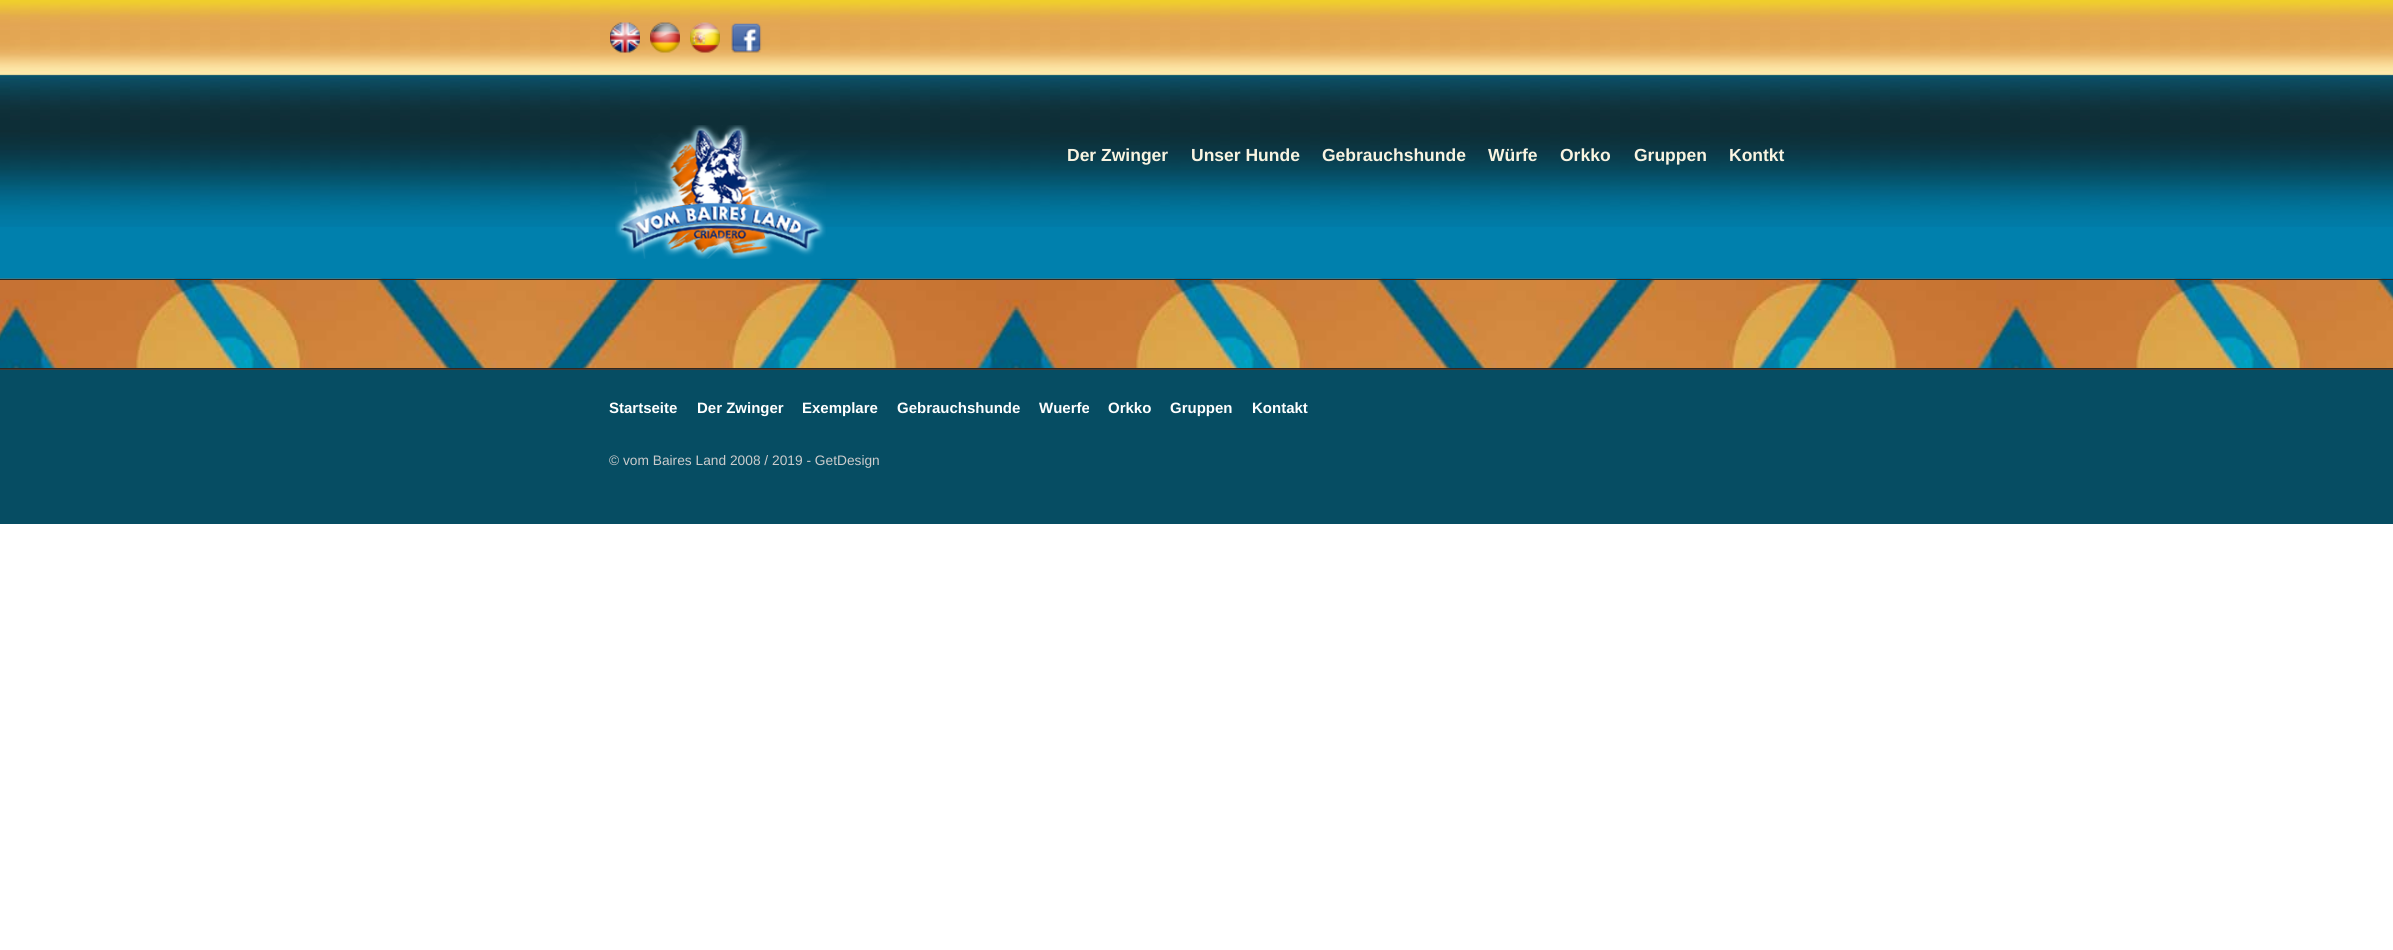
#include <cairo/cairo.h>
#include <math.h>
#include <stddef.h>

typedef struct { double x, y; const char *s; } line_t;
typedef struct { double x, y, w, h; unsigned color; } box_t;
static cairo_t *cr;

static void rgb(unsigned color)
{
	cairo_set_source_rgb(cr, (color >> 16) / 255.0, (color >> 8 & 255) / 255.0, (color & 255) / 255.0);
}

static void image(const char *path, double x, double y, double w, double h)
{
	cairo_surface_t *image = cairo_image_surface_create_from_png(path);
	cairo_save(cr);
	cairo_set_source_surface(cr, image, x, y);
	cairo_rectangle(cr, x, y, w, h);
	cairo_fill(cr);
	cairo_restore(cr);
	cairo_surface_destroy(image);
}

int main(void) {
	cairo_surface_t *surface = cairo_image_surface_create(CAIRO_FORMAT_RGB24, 2393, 950);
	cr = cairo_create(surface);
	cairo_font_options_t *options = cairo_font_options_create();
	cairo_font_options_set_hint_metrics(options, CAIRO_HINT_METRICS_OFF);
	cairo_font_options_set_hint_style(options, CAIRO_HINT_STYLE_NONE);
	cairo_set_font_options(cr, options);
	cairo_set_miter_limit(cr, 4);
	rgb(0xffffff);
	cairo_paint(cr);
	rgb(0x0080ad);
	cairo_rectangle(cr, 0, 227, 2393, 52);
	cairo_fill(cr);
	image("img/1.png", 0, 0, 2393, 227);
	image("img/2.png", 610, 22, 30, 31);
	image("img/3.png", 650, 22, 30, 31);
	image("img/4.png", 690, 22, 30, 31);
	image("img/5.png", 731, 23, 31, 30);
	image("img/6.png", 615, 125, 211, 134);
	image("img/7.png", 0, 278, 2393, 90);
	{
		static const box_t items[] = {
			{0, 279, 2393, 1, 0x2e2823},
			{0, 368, 2393, 1, 0x2e2823},
			{0, 370, 2393, 154, 0x064d63},
			{0, 369, 2393, 1, 0x453c34},
		};
		for (size_t i = 0; i < sizeof items / sizeof *items; i++) {
			rgb(items[i].color);
			cairo_rectangle(cr, items[i].x, items[i].y, items[i].w, items[i].h);
			cairo_fill(cr);
		}
	}
	cairo_select_font_face(cr, "Liberation Sans", CAIRO_FONT_SLANT_NORMAL, CAIRO_FONT_WEIGHT_BOLD);
	cairo_set_font_size(cr, 17.5);
	rgb(0xf9f4e1);
	{
		static const line_t items[] = {
			{1067, 161, "Der Zwinger"},
			{1191, 161, "Unser Hunde"},
			{1322, 161, "Gebrauchshunde"},
			{1488, 161, "Würfe"},
			{1560, 161, "Orkko"},
			{1634, 161, "Gruppen"},
			{1729, 161, "Kontkt"},
		};
		for (size_t i = 0; i < sizeof items / sizeof *items; i++) {
			cairo_move_to(cr, items[i].x, items[i].y);
			cairo_show_text(cr, items[i].s);
		}
	}
	cairo_set_font_size(cr, 15);
	rgb(0xffffff);
	{
		static const line_t items[] = {
			{609, 413, "Startseite"},
			{697, 413, "Der Zwinger"},
			{802, 413, "Exemplare"},
			{897, 413, "Gebrauchshunde"},
			{1039, 413, "Wuerfe"},
			{1108, 413, "Orkko"},
			{1170, 413, "Gruppen"},
			{1252, 413, "Kontakt"},
		};
		for (size_t i = 0; i < sizeof items / sizeof *items; i++) {
			cairo_move_to(cr, items[i].x, items[i].y);
			cairo_show_text(cr, items[i].s);
		}
	}
	cairo_select_font_face(cr, "Liberation Sans", CAIRO_FONT_SLANT_NORMAL, CAIRO_FONT_WEIGHT_NORMAL);
	cairo_set_font_size(cr, 13.75);
	rgb(0xcccccc);
	cairo_move_to(cr, 609, 465);
	cairo_show_text(cr, "© vom Baires Land 2008 / 2019 - GetDesign");
	cairo_surface_write_to_png(surface, "page.png");
	cairo_font_options_destroy(options);
	cairo_destroy(cr);
	cairo_surface_destroy(surface);
	return 0;
}
